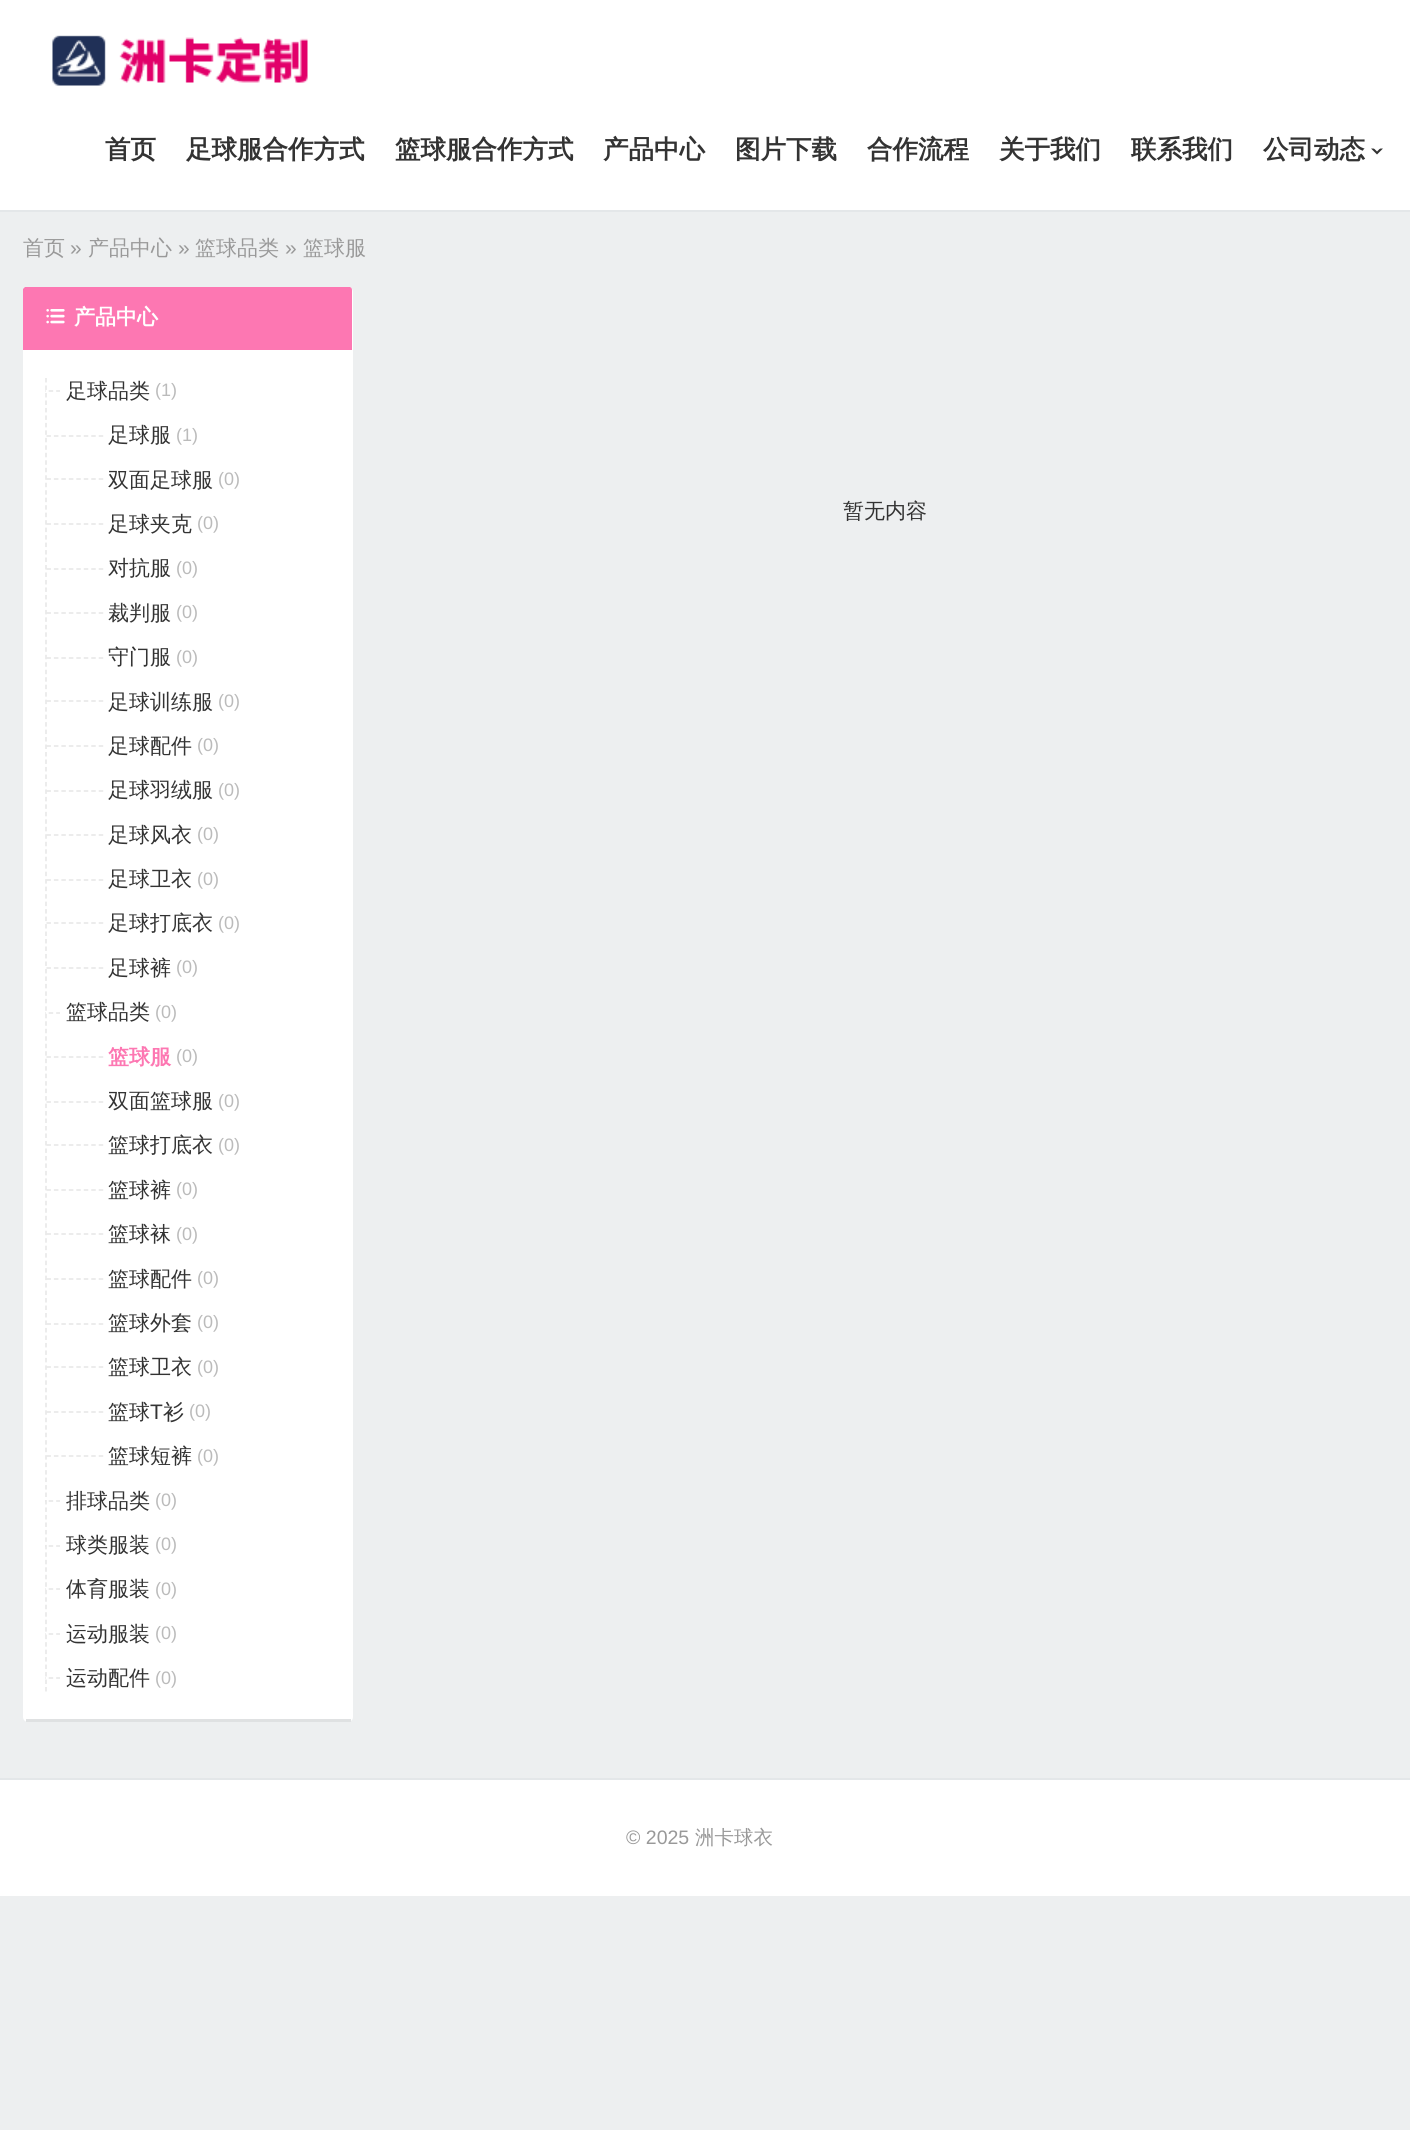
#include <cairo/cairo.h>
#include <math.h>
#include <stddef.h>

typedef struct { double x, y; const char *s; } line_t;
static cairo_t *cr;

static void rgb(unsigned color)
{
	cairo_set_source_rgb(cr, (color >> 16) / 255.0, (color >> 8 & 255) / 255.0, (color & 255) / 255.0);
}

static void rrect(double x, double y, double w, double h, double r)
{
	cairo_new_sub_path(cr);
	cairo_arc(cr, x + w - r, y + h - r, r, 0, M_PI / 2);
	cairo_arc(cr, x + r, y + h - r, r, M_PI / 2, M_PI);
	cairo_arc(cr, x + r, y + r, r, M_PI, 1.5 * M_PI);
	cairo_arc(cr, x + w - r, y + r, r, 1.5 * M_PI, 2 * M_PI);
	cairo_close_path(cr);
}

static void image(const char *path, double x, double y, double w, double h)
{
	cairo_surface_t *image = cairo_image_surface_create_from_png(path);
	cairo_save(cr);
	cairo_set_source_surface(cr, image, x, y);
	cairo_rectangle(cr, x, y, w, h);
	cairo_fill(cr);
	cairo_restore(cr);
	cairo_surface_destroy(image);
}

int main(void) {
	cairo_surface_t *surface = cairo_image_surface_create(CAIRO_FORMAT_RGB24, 1410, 2130);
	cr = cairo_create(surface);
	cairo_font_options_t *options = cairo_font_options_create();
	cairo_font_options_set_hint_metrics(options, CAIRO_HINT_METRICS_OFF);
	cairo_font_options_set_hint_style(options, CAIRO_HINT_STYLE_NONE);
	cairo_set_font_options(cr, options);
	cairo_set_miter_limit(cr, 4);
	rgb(0xedeff0);
	cairo_paint(cr);
	rgb(0xffffff);
	cairo_rectangle(cr, 0, 0, 1410, 210);
	cairo_fill(cr);
	rgb(0xe4e7e9);
	cairo_rectangle(cr, 0, 210, 1410, 2);
	cairo_fill(cr);
	image("img/1.png", 52, 35, 256, 51);
	rgb(0x333333);
	cairo_new_path(cr);
	cairo_move_to(cr, 1371, 148.5);
	cairo_line_to(cr, 1383, 148.5);
	cairo_line_to(cr, 1377, 154.5);
	cairo_close_path(cr);
	cairo_fill(cr);
	rgb(0xffffff);
	cairo_new_path(cr);
	cairo_move_to(cr, 1371, 145.5);
	cairo_line_to(cr, 1383, 145.5);
	cairo_line_to(cr, 1377, 151.5);
	cairo_close_path(cr);
	cairo_fill(cr);
	rrect(23, 287, 330, 1435, 5);
	cairo_fill(cr);
	rgb(0xdfe1e2);
	cairo_rectangle(cr, 26, 1719, 325, 3);
	cairo_fill(cr);
	rgb(0xfd77b2);
	cairo_new_path(cr);
	cairo_move_to(cr, 23, 289);
	cairo_line_to(cr, 25, 287);
	cairo_line_to(cr, 350, 287);
	cairo_curve_to(cr, 352, 288, 352, 289, 352, 291);
	cairo_line_to(cr, 352, 350);
	cairo_line_to(cr, 23, 350);
	cairo_close_path(cr);
	cairo_fill(cr);
	image("img/2.png", 46, 309, 19, 15);
	cairo_new_path(cr);
	cairo_move_to(cr, 46, 378);
	cairo_line_to(cr, 46, 1692);
	rgb(0xe6e6e6);
	cairo_set_line_width(cr, 1.5);
	cairo_set_dash(cr, (double[]){4.5, 2.98}, 2, 0);
	cairo_stroke(cr);
	cairo_save(cr);
	cairo_rectangle(cr, 45, 360, 285, 1347);
	cairo_clip(cr);
	cairo_new_path(cr);
	cairo_move_to(cr, -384, 391);
	cairo_line_to(cr, 60, 391);
	cairo_set_dash(cr, (double[]){4.5, 2.96}, 2, 0);
	cairo_stroke(cr);
	cairo_new_path(cr);
	cairo_move_to(cr, -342, 436);
	cairo_line_to(cr, 103.5, 436);
	cairo_set_dash(cr, (double[]){4.5, 2.97}, 2, 0);
	cairo_stroke(cr);
	cairo_new_path(cr);
	cairo_move_to(cr, -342, 479);
	cairo_line_to(cr, 103.5, 479);
	cairo_stroke(cr);
	cairo_new_path(cr);
	cairo_move_to(cr, -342, 524);
	cairo_line_to(cr, 103.5, 524);
	cairo_stroke(cr);
	cairo_new_path(cr);
	cairo_move_to(cr, -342, 569);
	cairo_line_to(cr, 103.5, 569);
	cairo_stroke(cr);
	cairo_new_path(cr);
	cairo_move_to(cr, -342, 613);
	cairo_line_to(cr, 103.5, 613);
	cairo_stroke(cr);
	cairo_new_path(cr);
	cairo_move_to(cr, -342, 658);
	cairo_line_to(cr, 103.5, 658);
	cairo_stroke(cr);
	cairo_new_path(cr);
	cairo_move_to(cr, -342, 701);
	cairo_line_to(cr, 103.5, 701);
	cairo_stroke(cr);
	cairo_new_path(cr);
	cairo_move_to(cr, -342, 746);
	cairo_line_to(cr, 103.5, 746);
	cairo_stroke(cr);
	cairo_new_path(cr);
	cairo_move_to(cr, -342, 791);
	cairo_line_to(cr, 103.5, 791);
	cairo_stroke(cr);
	cairo_new_path(cr);
	cairo_move_to(cr, -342, 835);
	cairo_line_to(cr, 103.5, 835);
	cairo_stroke(cr);
	cairo_new_path(cr);
	cairo_move_to(cr, -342, 880);
	cairo_line_to(cr, 103.5, 880);
	cairo_stroke(cr);
	cairo_new_path(cr);
	cairo_move_to(cr, -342, 923);
	cairo_line_to(cr, 103.5, 923);
	cairo_stroke(cr);
	cairo_new_path(cr);
	cairo_move_to(cr, -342, 968);
	cairo_line_to(cr, 103.5, 968);
	cairo_stroke(cr);
	cairo_new_path(cr);
	cairo_move_to(cr, -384, 1013);
	cairo_line_to(cr, 60, 1013);
	cairo_set_dash(cr, (double[]){4.5, 2.96}, 2, 0);
	cairo_stroke(cr);
	cairo_new_path(cr);
	cairo_move_to(cr, -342, 1057);
	cairo_line_to(cr, 103.5, 1057);
	cairo_set_dash(cr, (double[]){4.5, 2.97}, 2, 0);
	cairo_stroke(cr);
	cairo_new_path(cr);
	cairo_move_to(cr, -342, 1102);
	cairo_line_to(cr, 103.5, 1102);
	cairo_stroke(cr);
	cairo_new_path(cr);
	cairo_move_to(cr, -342, 1145);
	cairo_line_to(cr, 103.5, 1145);
	cairo_stroke(cr);
	cairo_new_path(cr);
	cairo_move_to(cr, -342, 1190);
	cairo_line_to(cr, 103.5, 1190);
	cairo_stroke(cr);
	cairo_new_path(cr);
	cairo_move_to(cr, -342, 1234);
	cairo_line_to(cr, 103.5, 1234);
	cairo_stroke(cr);
	cairo_new_path(cr);
	cairo_move_to(cr, -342, 1279);
	cairo_line_to(cr, 103.5, 1279);
	cairo_stroke(cr);
	cairo_new_path(cr);
	cairo_move_to(cr, -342, 1324);
	cairo_line_to(cr, 103.5, 1324);
	cairo_stroke(cr);
	cairo_new_path(cr);
	cairo_move_to(cr, -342, 1367);
	cairo_line_to(cr, 103.5, 1367);
	cairo_stroke(cr);
	cairo_new_path(cr);
	cairo_move_to(cr, -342, 1412);
	cairo_line_to(cr, 103.5, 1412);
	cairo_stroke(cr);
	cairo_new_path(cr);
	cairo_move_to(cr, -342, 1456);
	cairo_line_to(cr, 103.5, 1456);
	cairo_stroke(cr);
	cairo_new_path(cr);
	cairo_move_to(cr, -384, 1501);
	cairo_line_to(cr, 60, 1501);
	cairo_set_dash(cr, (double[]){4.5, 2.96}, 2, 0);
	cairo_stroke(cr);
	cairo_new_path(cr);
	cairo_move_to(cr, -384, 1546);
	cairo_line_to(cr, 60, 1546);
	cairo_stroke(cr);
	cairo_new_path(cr);
	cairo_move_to(cr, -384, 1589);
	cairo_line_to(cr, 60, 1589);
	cairo_stroke(cr);
	cairo_new_path(cr);
	cairo_move_to(cr, -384, 1634);
	cairo_line_to(cr, 60, 1634);
	cairo_stroke(cr);
	cairo_new_path(cr);
	cairo_move_to(cr, -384, 1678);
	cairo_line_to(cr, 60, 1678);
	cairo_stroke(cr);
	cairo_restore(cr);
	rgb(0xffffff);
	cairo_rectangle(cr, 0, 1780, 1410, 116);
	cairo_fill(cr);
	rgb(0xe4e7e9);
	cairo_rectangle(cr, 0, 1778, 1410, 2);
	cairo_fill(cr);
	cairo_select_font_face(cr, "WenQuanYi Zen Hei", CAIRO_FONT_SLANT_NORMAL, CAIRO_FONT_WEIGHT_BOLD);
	cairo_set_font_size(cr, 25.5);
	rgb(0x333333);
	{
		static const line_t items[] = {
			{105, 158, "首页"},
			{186, 158, "足球服合作方式"},
			{395, 158, "篮球服合作方式"},
			{603, 158, "产品中心"},
			{735, 158, "图片下载"},
			{867, 158, "合作流程"},
			{999, 158, "关于我们"},
			{1131, 158, "联系我们"},
			{1263, 158, "公司动态"},
		};
		for (size_t i = 0; i < sizeof items / sizeof *items; i++) {
			cairo_move_to(cr, items[i].x, items[i].y);
			cairo_show_text(cr, items[i].s);
		}
	}
	cairo_select_font_face(cr, "WenQuanYi Zen Hei Medium", CAIRO_FONT_SLANT_NORMAL, CAIRO_FONT_WEIGHT_NORMAL);
	cairo_set_font_size(cr, 21);
	rgb(0x999999);
	cairo_move_to(cr, 23, 255);
	cairo_show_text(cr, "首页");
	cairo_select_font_face(cr, "Liberation Sans", CAIRO_FONT_SLANT_NORMAL, CAIRO_FONT_WEIGHT_NORMAL);
	cairo_move_to(cr, 70, 255);
	cairo_show_text(cr, "»");
	cairo_select_font_face(cr, "WenQuanYi Zen Hei Medium", CAIRO_FONT_SLANT_NORMAL, CAIRO_FONT_WEIGHT_NORMAL);
	cairo_move_to(cr, 88, 255);
	cairo_show_text(cr, "产品中心");
	cairo_select_font_face(cr, "Liberation Sans", CAIRO_FONT_SLANT_NORMAL, CAIRO_FONT_WEIGHT_NORMAL);
	cairo_move_to(cr, 178, 255);
	cairo_show_text(cr, "»");
	cairo_select_font_face(cr, "WenQuanYi Zen Hei Medium", CAIRO_FONT_SLANT_NORMAL, CAIRO_FONT_WEIGHT_NORMAL);
	cairo_move_to(cr, 195, 255);
	cairo_show_text(cr, "篮球品类");
	cairo_select_font_face(cr, "Liberation Sans", CAIRO_FONT_SLANT_NORMAL, CAIRO_FONT_WEIGHT_NORMAL);
	cairo_move_to(cr, 285, 255);
	cairo_show_text(cr, "»");
	cairo_select_font_face(cr, "WenQuanYi Zen Hei Medium", CAIRO_FONT_SLANT_NORMAL, CAIRO_FONT_WEIGHT_NORMAL);
	cairo_move_to(cr, 303, 255);
	cairo_show_text(cr, "篮球服");
	cairo_select_font_face(cr, "WenQuanYi Zen Hei", CAIRO_FONT_SLANT_NORMAL, CAIRO_FONT_WEIGHT_BOLD);
	rgb(0xffffff);
	cairo_move_to(cr, 74, 324);
	cairo_show_text(cr, "产品中心");
	cairo_select_font_face(cr, "WenQuanYi Zen Hei Medium", CAIRO_FONT_SLANT_NORMAL, CAIRO_FONT_WEIGHT_NORMAL);
	rgb(0x333333);
	cairo_move_to(cr, 66, 398);
	cairo_show_text(cr, "足球品类");
	cairo_select_font_face(cr, "Liberation Sans", CAIRO_FONT_SLANT_NORMAL, CAIRO_FONT_WEIGHT_NORMAL);
	cairo_set_font_size(cr, 18);
	rgb(0xbbbbbb);
	cairo_move_to(cr, 155, 396);
	cairo_show_text(cr, "(1)");
	cairo_select_font_face(cr, "WenQuanYi Zen Hei Medium", CAIRO_FONT_SLANT_NORMAL, CAIRO_FONT_WEIGHT_NORMAL);
	cairo_set_font_size(cr, 21);
	rgb(0x333333);
	cairo_move_to(cr, 108, 442);
	cairo_show_text(cr, "足球服");
	cairo_select_font_face(cr, "Liberation Sans", CAIRO_FONT_SLANT_NORMAL, CAIRO_FONT_WEIGHT_NORMAL);
	cairo_set_font_size(cr, 18);
	rgb(0xbbbbbb);
	cairo_move_to(cr, 176, 441);
	cairo_show_text(cr, "(1)");
	cairo_select_font_face(cr, "WenQuanYi Zen Hei Medium", CAIRO_FONT_SLANT_NORMAL, CAIRO_FONT_WEIGHT_NORMAL);
	cairo_set_font_size(cr, 21);
	rgb(0x333333);
	cairo_move_to(cr, 108, 487);
	cairo_show_text(cr, "双面足球服");
	cairo_select_font_face(cr, "Liberation Sans", CAIRO_FONT_SLANT_NORMAL, CAIRO_FONT_WEIGHT_NORMAL);
	cairo_set_font_size(cr, 18);
	rgb(0xbbbbbb);
	cairo_move_to(cr, 218, 485);
	cairo_show_text(cr, "(0)");
	cairo_select_font_face(cr, "WenQuanYi Zen Hei Medium", CAIRO_FONT_SLANT_NORMAL, CAIRO_FONT_WEIGHT_NORMAL);
	cairo_set_font_size(cr, 21);
	rgb(0x333333);
	cairo_move_to(cr, 108, 531);
	cairo_show_text(cr, "足球夹克");
	cairo_select_font_face(cr, "Liberation Sans", CAIRO_FONT_SLANT_NORMAL, CAIRO_FONT_WEIGHT_NORMAL);
	cairo_set_font_size(cr, 18);
	rgb(0xbbbbbb);
	cairo_move_to(cr, 197, 529);
	cairo_show_text(cr, "(0)");
	cairo_select_font_face(cr, "WenQuanYi Zen Hei Medium", CAIRO_FONT_SLANT_NORMAL, CAIRO_FONT_WEIGHT_NORMAL);
	cairo_set_font_size(cr, 21);
	rgb(0x333333);
	cairo_move_to(cr, 108, 575);
	cairo_show_text(cr, "对抗服");
	cairo_select_font_face(cr, "Liberation Sans", CAIRO_FONT_SLANT_NORMAL, CAIRO_FONT_WEIGHT_NORMAL);
	cairo_set_font_size(cr, 18);
	rgb(0xbbbbbb);
	cairo_move_to(cr, 176, 574);
	cairo_show_text(cr, "(0)");
	cairo_select_font_face(cr, "WenQuanYi Zen Hei Medium", CAIRO_FONT_SLANT_NORMAL, CAIRO_FONT_WEIGHT_NORMAL);
	cairo_set_font_size(cr, 21);
	rgb(0x333333);
	cairo_move_to(cr, 108, 620);
	cairo_show_text(cr, "裁判服");
	cairo_select_font_face(cr, "Liberation Sans", CAIRO_FONT_SLANT_NORMAL, CAIRO_FONT_WEIGHT_NORMAL);
	cairo_set_font_size(cr, 18);
	rgb(0xbbbbbb);
	cairo_move_to(cr, 176, 618);
	cairo_show_text(cr, "(0)");
	cairo_select_font_face(cr, "WenQuanYi Zen Hei Medium", CAIRO_FONT_SLANT_NORMAL, CAIRO_FONT_WEIGHT_NORMAL);
	cairo_set_font_size(cr, 21);
	rgb(0x333333);
	cairo_move_to(cr, 108, 664);
	cairo_show_text(cr, "守门服");
	cairo_select_font_face(cr, "Liberation Sans", CAIRO_FONT_SLANT_NORMAL, CAIRO_FONT_WEIGHT_NORMAL);
	cairo_set_font_size(cr, 18);
	rgb(0xbbbbbb);
	cairo_move_to(cr, 176, 663);
	cairo_show_text(cr, "(0)");
	cairo_select_font_face(cr, "WenQuanYi Zen Hei Medium", CAIRO_FONT_SLANT_NORMAL, CAIRO_FONT_WEIGHT_NORMAL);
	cairo_set_font_size(cr, 21);
	rgb(0x333333);
	cairo_move_to(cr, 108, 709);
	cairo_show_text(cr, "足球训练服");
	cairo_select_font_face(cr, "Liberation Sans", CAIRO_FONT_SLANT_NORMAL, CAIRO_FONT_WEIGHT_NORMAL);
	cairo_set_font_size(cr, 18);
	rgb(0xbbbbbb);
	cairo_move_to(cr, 218, 707);
	cairo_show_text(cr, "(0)");
	cairo_select_font_face(cr, "WenQuanYi Zen Hei Medium", CAIRO_FONT_SLANT_NORMAL, CAIRO_FONT_WEIGHT_NORMAL);
	cairo_set_font_size(cr, 21);
	rgb(0x333333);
	cairo_move_to(cr, 108, 753);
	cairo_show_text(cr, "足球配件");
	cairo_select_font_face(cr, "Liberation Sans", CAIRO_FONT_SLANT_NORMAL, CAIRO_FONT_WEIGHT_NORMAL);
	cairo_set_font_size(cr, 18);
	rgb(0xbbbbbb);
	cairo_move_to(cr, 197, 751);
	cairo_show_text(cr, "(0)");
	cairo_select_font_face(cr, "WenQuanYi Zen Hei Medium", CAIRO_FONT_SLANT_NORMAL, CAIRO_FONT_WEIGHT_NORMAL);
	cairo_set_font_size(cr, 21);
	rgb(0x333333);
	cairo_move_to(cr, 108, 797);
	cairo_show_text(cr, "足球羽绒服");
	cairo_select_font_face(cr, "Liberation Sans", CAIRO_FONT_SLANT_NORMAL, CAIRO_FONT_WEIGHT_NORMAL);
	cairo_set_font_size(cr, 18);
	rgb(0xbbbbbb);
	cairo_move_to(cr, 218, 796);
	cairo_show_text(cr, "(0)");
	cairo_select_font_face(cr, "WenQuanYi Zen Hei Medium", CAIRO_FONT_SLANT_NORMAL, CAIRO_FONT_WEIGHT_NORMAL);
	cairo_set_font_size(cr, 21);
	rgb(0x333333);
	cairo_move_to(cr, 108, 842);
	cairo_show_text(cr, "足球风衣");
	cairo_select_font_face(cr, "Liberation Sans", CAIRO_FONT_SLANT_NORMAL, CAIRO_FONT_WEIGHT_NORMAL);
	cairo_set_font_size(cr, 18);
	rgb(0xbbbbbb);
	cairo_move_to(cr, 197, 840);
	cairo_show_text(cr, "(0)");
	cairo_select_font_face(cr, "WenQuanYi Zen Hei Medium", CAIRO_FONT_SLANT_NORMAL, CAIRO_FONT_WEIGHT_NORMAL);
	cairo_set_font_size(cr, 21);
	rgb(0x333333);
	cairo_move_to(cr, 108, 886);
	cairo_show_text(cr, "足球卫衣");
	cairo_select_font_face(cr, "Liberation Sans", CAIRO_FONT_SLANT_NORMAL, CAIRO_FONT_WEIGHT_NORMAL);
	cairo_set_font_size(cr, 18);
	rgb(0xbbbbbb);
	cairo_move_to(cr, 197, 885);
	cairo_show_text(cr, "(0)");
	cairo_select_font_face(cr, "WenQuanYi Zen Hei Medium", CAIRO_FONT_SLANT_NORMAL, CAIRO_FONT_WEIGHT_NORMAL);
	cairo_set_font_size(cr, 21);
	rgb(0x333333);
	cairo_move_to(cr, 108, 930);
	cairo_show_text(cr, "足球打底衣");
	cairo_select_font_face(cr, "Liberation Sans", CAIRO_FONT_SLANT_NORMAL, CAIRO_FONT_WEIGHT_NORMAL);
	cairo_set_font_size(cr, 18);
	rgb(0xbbbbbb);
	cairo_move_to(cr, 218, 929);
	cairo_show_text(cr, "(0)");
	cairo_select_font_face(cr, "WenQuanYi Zen Hei Medium", CAIRO_FONT_SLANT_NORMAL, CAIRO_FONT_WEIGHT_NORMAL);
	cairo_set_font_size(cr, 21);
	rgb(0x333333);
	cairo_move_to(cr, 108, 975);
	cairo_show_text(cr, "足球裤");
	cairo_select_font_face(cr, "Liberation Sans", CAIRO_FONT_SLANT_NORMAL, CAIRO_FONT_WEIGHT_NORMAL);
	cairo_set_font_size(cr, 18);
	rgb(0xbbbbbb);
	cairo_move_to(cr, 176, 973);
	cairo_show_text(cr, "(0)");
	cairo_select_font_face(cr, "WenQuanYi Zen Hei Medium", CAIRO_FONT_SLANT_NORMAL, CAIRO_FONT_WEIGHT_NORMAL);
	cairo_set_font_size(cr, 21);
	rgb(0x333333);
	cairo_move_to(cr, 66, 1019);
	cairo_show_text(cr, "篮球品类");
	cairo_select_font_face(cr, "Liberation Sans", CAIRO_FONT_SLANT_NORMAL, CAIRO_FONT_WEIGHT_NORMAL);
	cairo_set_font_size(cr, 18);
	rgb(0xbbbbbb);
	cairo_move_to(cr, 155, 1018);
	cairo_show_text(cr, "(0)");
	cairo_select_font_face(cr, "WenQuanYi Zen Hei", CAIRO_FONT_SLANT_NORMAL, CAIRO_FONT_WEIGHT_BOLD);
	cairo_set_font_size(cr, 21);
	rgb(0xfd77b2);
	cairo_move_to(cr, 108, 1064);
	cairo_show_text(cr, "篮球服");
	cairo_select_font_face(cr, "Liberation Sans", CAIRO_FONT_SLANT_NORMAL, CAIRO_FONT_WEIGHT_NORMAL);
	cairo_set_font_size(cr, 18);
	rgb(0xbbbbbb);
	cairo_move_to(cr, 176, 1062);
	cairo_show_text(cr, "(0)");
	cairo_select_font_face(cr, "WenQuanYi Zen Hei Medium", CAIRO_FONT_SLANT_NORMAL, CAIRO_FONT_WEIGHT_NORMAL);
	cairo_set_font_size(cr, 21);
	rgb(0x333333);
	cairo_move_to(cr, 108, 1108);
	cairo_show_text(cr, "双面篮球服");
	cairo_select_font_face(cr, "Liberation Sans", CAIRO_FONT_SLANT_NORMAL, CAIRO_FONT_WEIGHT_NORMAL);
	cairo_set_font_size(cr, 18);
	rgb(0xbbbbbb);
	cairo_move_to(cr, 218, 1107);
	cairo_show_text(cr, "(0)");
	cairo_select_font_face(cr, "WenQuanYi Zen Hei Medium", CAIRO_FONT_SLANT_NORMAL, CAIRO_FONT_WEIGHT_NORMAL);
	cairo_set_font_size(cr, 21);
	rgb(0x333333);
	cairo_move_to(cr, 108, 1152);
	cairo_show_text(cr, "篮球打底衣");
	cairo_select_font_face(cr, "Liberation Sans", CAIRO_FONT_SLANT_NORMAL, CAIRO_FONT_WEIGHT_NORMAL);
	cairo_set_font_size(cr, 18);
	rgb(0xbbbbbb);
	cairo_move_to(cr, 218, 1151);
	cairo_show_text(cr, "(0)");
	cairo_select_font_face(cr, "WenQuanYi Zen Hei Medium", CAIRO_FONT_SLANT_NORMAL, CAIRO_FONT_WEIGHT_NORMAL);
	cairo_set_font_size(cr, 21);
	rgb(0x333333);
	cairo_move_to(cr, 108, 1197);
	cairo_show_text(cr, "篮球裤");
	cairo_select_font_face(cr, "Liberation Sans", CAIRO_FONT_SLANT_NORMAL, CAIRO_FONT_WEIGHT_NORMAL);
	cairo_set_font_size(cr, 18);
	rgb(0xbbbbbb);
	cairo_move_to(cr, 176, 1195);
	cairo_show_text(cr, "(0)");
	cairo_select_font_face(cr, "WenQuanYi Zen Hei Medium", CAIRO_FONT_SLANT_NORMAL, CAIRO_FONT_WEIGHT_NORMAL);
	cairo_set_font_size(cr, 21);
	rgb(0x333333);
	cairo_move_to(cr, 108, 1241);
	cairo_show_text(cr, "篮球袜");
	cairo_select_font_face(cr, "Liberation Sans", CAIRO_FONT_SLANT_NORMAL, CAIRO_FONT_WEIGHT_NORMAL);
	cairo_set_font_size(cr, 18);
	rgb(0xbbbbbb);
	cairo_move_to(cr, 176, 1240);
	cairo_show_text(cr, "(0)");
	cairo_select_font_face(cr, "WenQuanYi Zen Hei Medium", CAIRO_FONT_SLANT_NORMAL, CAIRO_FONT_WEIGHT_NORMAL);
	cairo_set_font_size(cr, 21);
	rgb(0x333333);
	cairo_move_to(cr, 108, 1286);
	cairo_show_text(cr, "篮球配件");
	cairo_select_font_face(cr, "Liberation Sans", CAIRO_FONT_SLANT_NORMAL, CAIRO_FONT_WEIGHT_NORMAL);
	cairo_set_font_size(cr, 18);
	rgb(0xbbbbbb);
	cairo_move_to(cr, 197, 1284);
	cairo_show_text(cr, "(0)");
	cairo_select_font_face(cr, "WenQuanYi Zen Hei Medium", CAIRO_FONT_SLANT_NORMAL, CAIRO_FONT_WEIGHT_NORMAL);
	cairo_set_font_size(cr, 21);
	rgb(0x333333);
	cairo_move_to(cr, 108, 1330);
	cairo_show_text(cr, "篮球外套");
	cairo_select_font_face(cr, "Liberation Sans", CAIRO_FONT_SLANT_NORMAL, CAIRO_FONT_WEIGHT_NORMAL);
	cairo_set_font_size(cr, 18);
	rgb(0xbbbbbb);
	cairo_move_to(cr, 197, 1328);
	cairo_show_text(cr, "(0)");
	cairo_select_font_face(cr, "WenQuanYi Zen Hei Medium", CAIRO_FONT_SLANT_NORMAL, CAIRO_FONT_WEIGHT_NORMAL);
	cairo_set_font_size(cr, 21);
	rgb(0x333333);
	cairo_move_to(cr, 108, 1374);
	cairo_show_text(cr, "篮球卫衣");
	cairo_select_font_face(cr, "Liberation Sans", CAIRO_FONT_SLANT_NORMAL, CAIRO_FONT_WEIGHT_NORMAL);
	cairo_set_font_size(cr, 18);
	rgb(0xbbbbbb);
	cairo_move_to(cr, 197, 1373);
	cairo_show_text(cr, "(0)");
	cairo_select_font_face(cr, "WenQuanYi Zen Hei Medium", CAIRO_FONT_SLANT_NORMAL, CAIRO_FONT_WEIGHT_NORMAL);
	cairo_set_font_size(cr, 21);
	rgb(0x333333);
	cairo_move_to(cr, 108, 1419);
	cairo_show_text(cr, "篮球");
	cairo_select_font_face(cr, "Liberation Sans", CAIRO_FONT_SLANT_NORMAL, CAIRO_FONT_WEIGHT_NORMAL);
	cairo_move_to(cr, 150, 1419);
	cairo_show_text(cr, "T");
	cairo_select_font_face(cr, "WenQuanYi Zen Hei Medium", CAIRO_FONT_SLANT_NORMAL, CAIRO_FONT_WEIGHT_NORMAL);
	cairo_move_to(cr, 163, 1419);
	cairo_show_text(cr, "衫");
	cairo_select_font_face(cr, "Liberation Sans", CAIRO_FONT_SLANT_NORMAL, CAIRO_FONT_WEIGHT_NORMAL);
	cairo_set_font_size(cr, 18);
	rgb(0xbbbbbb);
	cairo_move_to(cr, 189, 1417);
	cairo_show_text(cr, "(0)");
	cairo_select_font_face(cr, "WenQuanYi Zen Hei Medium", CAIRO_FONT_SLANT_NORMAL, CAIRO_FONT_WEIGHT_NORMAL);
	cairo_set_font_size(cr, 21);
	rgb(0x333333);
	cairo_move_to(cr, 108, 1463);
	cairo_show_text(cr, "篮球短裤");
	cairo_select_font_face(cr, "Liberation Sans", CAIRO_FONT_SLANT_NORMAL, CAIRO_FONT_WEIGHT_NORMAL);
	cairo_set_font_size(cr, 18);
	rgb(0xbbbbbb);
	cairo_move_to(cr, 197, 1462);
	cairo_show_text(cr, "(0)");
	cairo_select_font_face(cr, "WenQuanYi Zen Hei Medium", CAIRO_FONT_SLANT_NORMAL, CAIRO_FONT_WEIGHT_NORMAL);
	cairo_set_font_size(cr, 21);
	rgb(0x333333);
	cairo_move_to(cr, 66, 1508);
	cairo_show_text(cr, "排球品类");
	cairo_select_font_face(cr, "Liberation Sans", CAIRO_FONT_SLANT_NORMAL, CAIRO_FONT_WEIGHT_NORMAL);
	cairo_set_font_size(cr, 18);
	rgb(0xbbbbbb);
	cairo_move_to(cr, 155, 1506);
	cairo_show_text(cr, "(0)");
	cairo_select_font_face(cr, "WenQuanYi Zen Hei Medium", CAIRO_FONT_SLANT_NORMAL, CAIRO_FONT_WEIGHT_NORMAL);
	cairo_set_font_size(cr, 21);
	rgb(0x333333);
	cairo_move_to(cr, 66, 1552);
	cairo_show_text(cr, "球类服装");
	cairo_select_font_face(cr, "Liberation Sans", CAIRO_FONT_SLANT_NORMAL, CAIRO_FONT_WEIGHT_NORMAL);
	cairo_set_font_size(cr, 18);
	rgb(0xbbbbbb);
	cairo_move_to(cr, 155, 1550);
	cairo_show_text(cr, "(0)");
	cairo_select_font_face(cr, "WenQuanYi Zen Hei Medium", CAIRO_FONT_SLANT_NORMAL, CAIRO_FONT_WEIGHT_NORMAL);
	cairo_set_font_size(cr, 21);
	rgb(0x333333);
	cairo_move_to(cr, 66, 1596);
	cairo_show_text(cr, "体育服装");
	cairo_select_font_face(cr, "Liberation Sans", CAIRO_FONT_SLANT_NORMAL, CAIRO_FONT_WEIGHT_NORMAL);
	cairo_set_font_size(cr, 18);
	rgb(0xbbbbbb);
	cairo_move_to(cr, 155, 1595);
	cairo_show_text(cr, "(0)");
	cairo_select_font_face(cr, "WenQuanYi Zen Hei Medium", CAIRO_FONT_SLANT_NORMAL, CAIRO_FONT_WEIGHT_NORMAL);
	cairo_set_font_size(cr, 21);
	rgb(0x333333);
	cairo_move_to(cr, 66, 1641);
	cairo_show_text(cr, "运动服装");
	cairo_select_font_face(cr, "Liberation Sans", CAIRO_FONT_SLANT_NORMAL, CAIRO_FONT_WEIGHT_NORMAL);
	cairo_set_font_size(cr, 18);
	rgb(0xbbbbbb);
	cairo_move_to(cr, 155, 1639);
	cairo_show_text(cr, "(0)");
	cairo_select_font_face(cr, "WenQuanYi Zen Hei Medium", CAIRO_FONT_SLANT_NORMAL, CAIRO_FONT_WEIGHT_NORMAL);
	cairo_set_font_size(cr, 21);
	rgb(0x333333);
	cairo_move_to(cr, 66, 1685);
	cairo_show_text(cr, "运动配件");
	cairo_select_font_face(cr, "Liberation Sans", CAIRO_FONT_SLANT_NORMAL, CAIRO_FONT_WEIGHT_NORMAL);
	cairo_set_font_size(cr, 18);
	rgb(0xbbbbbb);
	cairo_move_to(cr, 155, 1684);
	cairo_show_text(cr, "(0)");
	cairo_select_font_face(cr, "WenQuanYi Zen Hei Medium", CAIRO_FONT_SLANT_NORMAL, CAIRO_FONT_WEIGHT_NORMAL);
	cairo_set_font_size(cr, 21);
	rgb(0x333333);
	cairo_move_to(cr, 843, 518);
	cairo_show_text(cr, "暂无内容");
	cairo_select_font_face(cr, "Liberation Sans", CAIRO_FONT_SLANT_NORMAL, CAIRO_FONT_WEIGHT_NORMAL);
	cairo_set_font_size(cr, 19.5);
	rgb(0x999999);
	cairo_move_to(cr, 626, 1844);
	cairo_show_text(cr, "© 2025");
	cairo_select_font_face(cr, "WenQuanYi Zen Hei Medium", CAIRO_FONT_SLANT_NORMAL, CAIRO_FONT_WEIGHT_NORMAL);
	cairo_move_to(cr, 695, 1844);
	cairo_show_text(cr, "洲卡球衣");
	cairo_surface_write_to_png(surface, "page.png");
	cairo_font_options_destroy(options);
	cairo_destroy(cr);
	cairo_surface_destroy(surface);
	return 0;
}
